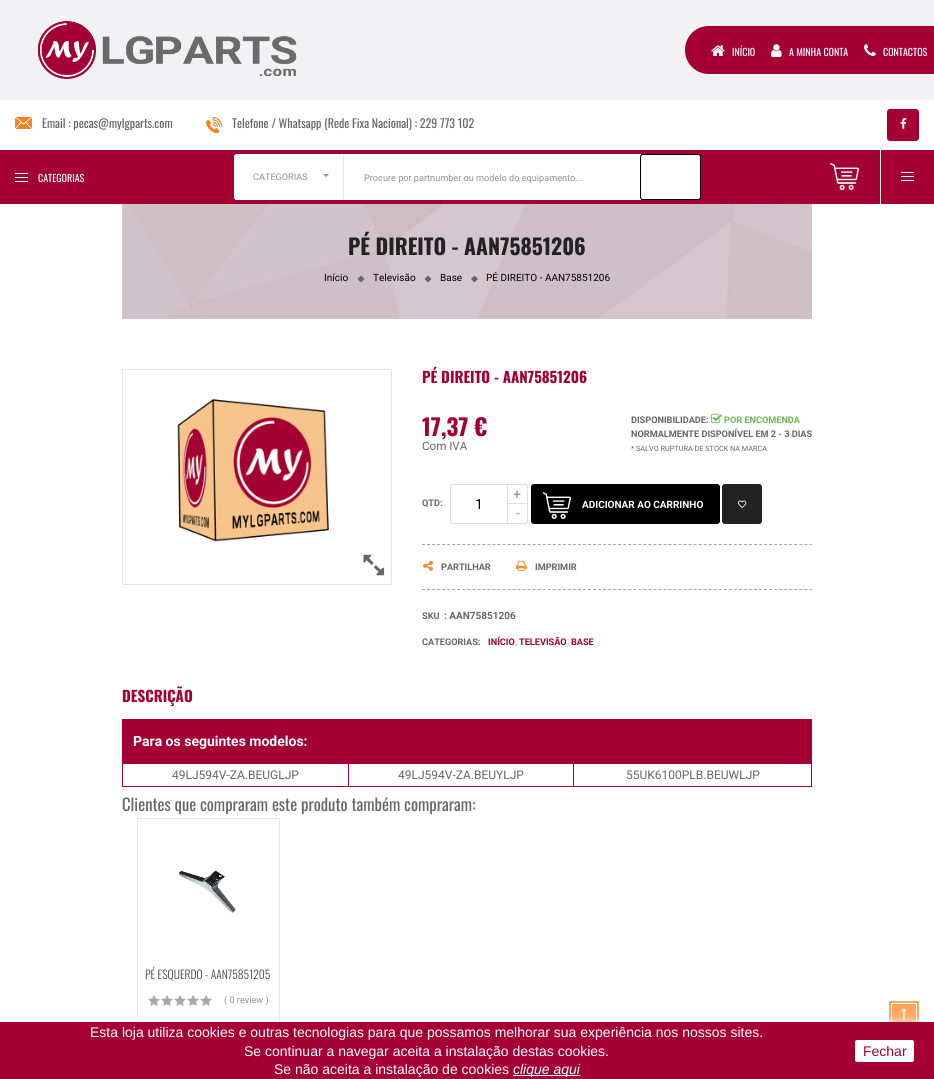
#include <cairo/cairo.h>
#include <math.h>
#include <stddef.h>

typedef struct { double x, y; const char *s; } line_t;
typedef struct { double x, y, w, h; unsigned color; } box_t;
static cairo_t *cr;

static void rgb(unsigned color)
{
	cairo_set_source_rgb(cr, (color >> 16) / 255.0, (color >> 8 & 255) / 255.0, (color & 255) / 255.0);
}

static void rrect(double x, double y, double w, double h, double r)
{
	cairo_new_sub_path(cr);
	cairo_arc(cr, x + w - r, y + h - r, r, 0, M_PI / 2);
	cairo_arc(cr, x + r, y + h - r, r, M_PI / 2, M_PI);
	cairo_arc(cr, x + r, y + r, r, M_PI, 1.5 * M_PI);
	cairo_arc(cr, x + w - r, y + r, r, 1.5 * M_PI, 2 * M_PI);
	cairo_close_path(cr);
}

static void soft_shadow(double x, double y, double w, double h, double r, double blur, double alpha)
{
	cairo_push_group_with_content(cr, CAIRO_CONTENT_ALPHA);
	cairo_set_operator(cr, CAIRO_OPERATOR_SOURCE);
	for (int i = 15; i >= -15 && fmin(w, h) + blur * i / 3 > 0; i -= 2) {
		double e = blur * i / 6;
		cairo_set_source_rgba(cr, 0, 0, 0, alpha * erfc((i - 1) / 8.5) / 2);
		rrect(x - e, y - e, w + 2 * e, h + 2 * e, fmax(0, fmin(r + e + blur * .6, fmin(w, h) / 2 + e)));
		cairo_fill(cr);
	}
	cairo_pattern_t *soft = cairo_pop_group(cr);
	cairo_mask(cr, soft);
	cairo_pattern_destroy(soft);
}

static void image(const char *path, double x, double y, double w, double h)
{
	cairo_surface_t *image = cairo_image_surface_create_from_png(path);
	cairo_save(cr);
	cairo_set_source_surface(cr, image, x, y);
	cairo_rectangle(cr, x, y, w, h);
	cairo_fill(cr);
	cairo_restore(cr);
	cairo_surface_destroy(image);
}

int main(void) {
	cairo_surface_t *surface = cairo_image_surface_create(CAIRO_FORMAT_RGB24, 934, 1079);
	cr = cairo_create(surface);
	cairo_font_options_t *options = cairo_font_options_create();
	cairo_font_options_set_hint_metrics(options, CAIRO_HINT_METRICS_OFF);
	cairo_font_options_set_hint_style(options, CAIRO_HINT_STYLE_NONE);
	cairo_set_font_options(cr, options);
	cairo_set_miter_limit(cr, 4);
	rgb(0xffffff);
	cairo_paint(cr);
	rgb(0xf2f2f4);
	cairo_rectangle(cr, 0, 0, 934, 100);
	cairo_fill(cr);
	image("img/1.png", 38, 21, 259, 58);
	rgb(0xa50034);
	cairo_new_path(cr);
	cairo_move_to(cr, 709, 26);
	cairo_line_to(cr, 934, 26);
	cairo_line_to(cr, 934, 74);
	cairo_line_to(cr, 709, 74);
	cairo_curve_to(cr, 695.5, 74, 685, 63.5, 685, 50);
	cairo_curve_to(cr, 685, 36.5, 695.5, 26, 709, 26);
	cairo_close_path(cr);
	cairo_fill(cr);
	image("img/2.png", 711, 45, 14, 11);
	image("img/3.png", 771, 44, 11, 14);
	image("img/4.png", 864, 44, 12, 12);
	image("img/5.png", 15, 117, 17, 12);
	image("img/6.png", 206, 117, 17, 16);
	rrect(887, 109, 32, 32, 3);
	cairo_fill(cr);
	image("img/7.png", 900, 118, 7, 11);
	{
		static const box_t items[] = {
			{0, 150, 934, 54, 0xa50034},
			{15, 177, 13, 1, 0xffffff},
			{15, 173, 13, 1, 0xffffff},
			{15, 181, 13, 1, 0xffffff},
		};
		for (size_t i = 0; i < sizeof items / sizeof *items; i++) {
			rgb(items[i].color);
			cairo_rectangle(cr, items[i].x, items[i].y, items[i].w, items[i].h);
			cairo_fill(cr);
		}
	}
	cairo_new_path(cr);
	cairo_move_to(cr, 237, 154);
	cairo_line_to(cr, 343, 154);
	cairo_line_to(cr, 343, 200);
	cairo_line_to(cr, 237, 200);
	cairo_curve_to(cr, 235.5, 200, 234, 198.5, 234, 197);
	cairo_line_to(cr, 234, 157);
	cairo_curve_to(cr, 234, 155.5, 235.5, 154, 237, 154);
	cairo_close_path(cr);
	cairo_fill(cr);
	cairo_new_path(cr);
	cairo_move_to(cr, 237, 154);
	cairo_line_to(cr, 334, 154);
	cairo_line_to(cr, 334, 200);
	cairo_line_to(cr, 237, 200);
	cairo_curve_to(cr, 235.5, 200, 234, 198.5, 234, 197);
	cairo_line_to(cr, 234, 157);
	cairo_curve_to(cr, 234, 155.5, 235.5, 154, 237, 154);
	cairo_close_path(cr);
	cairo_fill(cr);
	rgb(0x909090);
	cairo_new_path(cr);
	cairo_move_to(cr, 323, 174);
	cairo_line_to(cr, 329, 174);
	cairo_line_to(cr, 326, 177);
	cairo_close_path(cr);
	cairo_fill(cr);
	rgb(0xffffff);
	cairo_rectangle(cr, 344, 154, 297, 46);
	cairo_fill(cr);
	rgb(0xe6e6e6);
	cairo_rectangle(cr, 343, 154, 1, 46);
	cairo_fill(cr);
	rgb(0xffffff);
	rrect(640.5, 154.5, 60, 45, 2.5);
	cairo_fill_preserve(cr);
	rgb(0x000000);
	cairo_set_line_width(cr, 1);
	cairo_stroke(cr);
	image("img/8.png", 830, 163, 29, 27);
	{
		static const box_t items[] = {
			{880, 150, 1, 54, 0xf2f2f4},
			{901, 176, 13, 1, 0xffffff},
			{901, 172, 13, 1, 0xffffff},
			{901, 180, 13, 1, 0xffffff},
		};
		for (size_t i = 0; i < sizeof items / sizeof *items; i++) {
			rgb(items[i].color);
			cairo_rectangle(cr, items[i].x, items[i].y, items[i].w, items[i].h);
			cairo_fill(cr);
		}
	}
	image("img/9.png", 122, 204, 690, 115);
	rgb(0x666666);
	cairo_new_path(cr);
	cairo_move_to(cr, 361, 275.5);
	cairo_line_to(cr, 364.5, 279);
	cairo_line_to(cr, 361, 282.5);
	cairo_line_to(cr, 357.5, 279);
	cairo_close_path(cr);
	cairo_fill(cr);
	cairo_new_path(cr);
	cairo_move_to(cr, 428, 275.5);
	cairo_line_to(cr, 431.5, 279);
	cairo_line_to(cr, 428, 282.5);
	cairo_line_to(cr, 424.5, 279);
	cairo_close_path(cr);
	cairo_fill(cr);
	cairo_new_path(cr);
	cairo_move_to(cr, 474.5, 275.5);
	cairo_line_to(cr, 478, 279);
	cairo_line_to(cr, 474.5, 282.5);
	cairo_line_to(cr, 471, 279);
	cairo_close_path(cr);
	cairo_fill(cr);
	cairo_rectangle(cr, 122.5, 369.5, 269, 215);
	rgb(0xe6e6e6);
	cairo_stroke(cr);
	image("img/10.png", 177, 399, 152, 143);
	image("img/11.png", 363, 554, 22, 22);
	image("img/12.png", 711, 413, 11, 10);
	cairo_new_path(cr);
	cairo_move_to(cr, 422, 544.5);
	cairo_line_to(cr, 812, 544.5);
	rgb(0xa7a7a7);
	cairo_set_dash(cr, (double[]){3, 2.03}, 2, 0);
	cairo_stroke(cr);
	cairo_new_path(cr);
	cairo_move_to(cr, 507.5, 484.5);
	cairo_line_to(cr, 525, 484.5);
	cairo_curve_to(cr, 526.5, 484.5, 527.5, 485.5, 527.5, 487);
	cairo_line_to(cr, 527.5, 503.5);
	cairo_line_to(cr, 507.5, 503.5);
	cairo_close_path(cr);
	rgb(0xdfdfdf);
	cairo_set_dash(cr, NULL, 0, 0);
	cairo_stroke(cr);
	cairo_set_fill_rule(cr, CAIRO_FILL_RULE_EVEN_ODD);
	cairo_new_path(cr);
	cairo_move_to(cr, 507, 504);
	cairo_line_to(cr, 528, 504);
	cairo_line_to(cr, 528, 521);
	cairo_curve_to(cr, 528, 522.5, 526.5, 524, 525, 524);
	cairo_line_to(cr, 507, 524);
	cairo_close_path(cr);
	cairo_move_to(cr, 508, 504);
	cairo_line_to(cr, 527, 504);
	cairo_line_to(cr, 527, 521);
	cairo_curve_to(cr, 527, 522, 526, 523, 525, 523);
	cairo_line_to(cr, 508, 523);
	cairo_close_path(cr);
	cairo_fill(cr);
	cairo_new_path(cr);
	cairo_move_to(cr, 453, 484.5);
	cairo_line_to(cr, 507.5, 484.5);
	cairo_line_to(cr, 507.5, 523.5);
	cairo_line_to(cr, 453, 523.5);
	cairo_curve_to(cr, 451.5, 523.5, 450.5, 522.5, 450.5, 521);
	cairo_line_to(cr, 450.5, 487);
	cairo_curve_to(cr, 450.5, 485.5, 451.5, 484.5, 453, 484.5);
	cairo_close_path(cr);
	cairo_stroke(cr);
	rgb(0x000000);
	rrect(531.5, 484.5, 188, 39, 2.5);
	cairo_fill_preserve(cr);
	cairo_stroke(cr);
	image("img/13.png", 543, 492, 28, 27);
	rgb(0x222222);
	rrect(722.5, 484.5, 39, 39, 2.5);
	cairo_fill_preserve(cr);
	cairo_stroke(cr);
	image("img/14.png", 738, 500, 9, 8);
	cairo_new_path(cr);
	cairo_move_to(cr, 422, 589.5);
	cairo_line_to(cr, 812, 589.5);
	rgb(0xa7a7a7);
	cairo_set_dash(cr, (double[]){3, 2.03}, 2, 0);
	cairo_stroke(cr);
	image("img/15.png", 423, 560, 10, 11);
	image("img/16.png", 516, 560, 11, 11);
	{
		static const box_t items[] = {
			{123, 720, 689, 44, 0xa50034},
			{122, 719, 690, 1, 0xa50034},
			{122, 763, 1, 1, 0xa50034},
			{811, 763, 1, 24, 0xa50034},
			{573, 786, 239, 1, 0xa50034},
			{573, 763, 1, 24, 0xa50034},
			{348, 786, 226, 1, 0xa50034},
			{348, 763, 1, 24, 0xa50034},
			{122, 786, 227, 1, 0xa50034},
			{122, 763, 1, 24, 0xa50034},
			{122, 719, 1, 45, 0xa50034},
		};
		for (size_t i = 0; i < sizeof items / sizeof *items; i++) {
			rgb(items[i].color);
			cairo_rectangle(cr, items[i].x, items[i].y, items[i].w, items[i].h);
			cairo_fill(cr);
		}
	}
	cairo_rectangle(cr, 137.5, 818.5, 142, 236);
	rgb(0xe6e6e6);
	cairo_set_dash(cr, NULL, 0, 0);
	cairo_stroke(cr);
	image("img/17.png", 178, 870, 58, 45);
	image("img/18.png", 148, 995, 12, 11);
	image("img/18.png", 161, 995, 12, 11);
	image("img/18.png", 174, 995, 12, 11);
	image("img/18.png", 187, 995, 12, 11);
	image("img/18.png", 200, 995, 12, 11);
	rgb(0xffa45a);
	cairo_rectangle(cr, 889, 1001, 30, 21);
	cairo_fill(cr);
	image("img/19.png", 901, 1008, 6, 13);
	cairo_rectangle(cr, 891.5, 1003.5, 25, 23);
	rgb(0xffffff);
	cairo_stroke(cr);
	rgb(0xffffff);
	soft_shadow(0, 1022, 934, 57, 0, 5, 1);
	rgb(0xa50034);
	cairo_rectangle(cr, 0, 1022, 934, 57);
	cairo_fill(cr);
	rgb(0xffffff);
	cairo_rectangle(cr, 513, 1075, 67, 1);
	cairo_fill(cr);
	rrect(855, 1040, 59, 22, 2);
	cairo_fill(cr);
	cairo_select_font_face(cr, "Oswald", CAIRO_FONT_SLANT_NORMAL, CAIRO_FONT_WEIGHT_NORMAL);
	cairo_set_font_size(cr, 10);
	{
		static const line_t items[] = {
			{732, 56, "INÍCIO"},
			{789, 56, "A MINHA CONTA"},
			{883, 56, "CONTACTOS"},
		};
		for (size_t i = 0; i < sizeof items / sizeof *items; i++) {
			cairo_move_to(cr, items[i].x, items[i].y);
			cairo_show_text(cr, items[i].s);
		}
	}
	cairo_set_font_size(cr, 12);
	rgb(0x666666);
	cairo_move_to(cr, 42, 128);
	cairo_show_text(cr, "Email : pecas@mylgparts.com");
	cairo_move_to(cr, 232, 128);
	cairo_show_text(cr, "Telefone / Whatsapp (Rede Fixa Nacional) : 229 773 102");
	cairo_set_font_size(cr, 10);
	rgb(0xffffff);
	cairo_move_to(cr, 38, 182);
	cairo_show_text(cr, "CATEGORIAS");
	cairo_select_font_face(cr, "Roboto", CAIRO_FONT_SLANT_NORMAL, CAIRO_FONT_WEIGHT_NORMAL);
	cairo_set_font_size(cr, 9.15);
	rgb(0x909090);
	cairo_move_to(cr, 253, 180);
	cairo_show_text(cr, "CATEGORIAS");
	cairo_move_to(cr, 364, 181);
	cairo_show_text(cr, "Procure por partnumber ou modelo do equipamento...");
	cairo_select_font_face(cr, "Oswald", CAIRO_FONT_SLANT_NORMAL, CAIRO_FONT_WEIGHT_BOLD);
	cairo_set_font_size(cr, 21.6);
	rgb(0x222222);
	cairo_move_to(cr, 348, 255);
	cairo_show_text(cr, "PÉ DIREITO - AAN75851206");
	cairo_select_font_face(cr, "Roboto", CAIRO_FONT_SLANT_NORMAL, CAIRO_FONT_WEIGHT_NORMAL);
	cairo_set_font_size(cr, 10);
	rgb(0x000000);
	{
		static const line_t items[] = {
			{324, 281, "Início"},
			{373, 281, "Televisão"},
			{440, 281, "Base"},
			{486, 281, "PÉ DIREITO - AAN75851206"},
		};
		for (size_t i = 0; i < sizeof items / sizeof *items; i++) {
			cairo_move_to(cr, items[i].x, items[i].y);
			cairo_show_text(cr, items[i].s);
		}
	}
	cairo_select_font_face(cr, "Oswald", CAIRO_FONT_SLANT_NORMAL, CAIRO_FONT_WEIGHT_BOLD);
	cairo_set_font_size(cr, 15);
	rgb(0xa50034);
	cairo_move_to(cr, 422, 383);
	cairo_show_text(cr, "PÉ DIREITO - AAN75851206");
	cairo_set_font_size(cr, 23);
	cairo_move_to(cr, 422, 436);
	cairo_show_text(cr, "17,37 €");
	cairo_select_font_face(cr, "Roboto", CAIRO_FONT_SLANT_NORMAL, CAIRO_FONT_WEIGHT_NORMAL);
	cairo_set_font_size(cr, 11.6);
	rgb(0x666666);
	cairo_move_to(cr, 422, 450);
	cairo_show_text(cr, "Com IVA");
	cairo_select_font_face(cr, "Roboto", CAIRO_FONT_SLANT_NORMAL, CAIRO_FONT_WEIGHT_BOLD);
	cairo_set_font_size(cr, 9.15);
	cairo_move_to(cr, 631, 423);
	cairo_show_text(cr, "DISPONIBILIDADE:");
	rgb(0x6bb853);
	cairo_move_to(cr, 724, 423);
	cairo_show_text(cr, "POR ENCOMENDA");
	rgb(0x666666);
	cairo_move_to(cr, 631, 437);
	cairo_show_text(cr, "NORMALMENTE DISPONÍVEL EM 2 - 3 DIAS");
	cairo_select_font_face(cr, "Roboto", CAIRO_FONT_SLANT_NORMAL, CAIRO_FONT_WEIGHT_NORMAL);
	cairo_set_font_size(cr, 7.3);
	cairo_move_to(cr, 631, 451);
	cairo_show_text(cr, "* SALVO RUPTURA DE STOCK NA MARCA");
	cairo_select_font_face(cr, "Roboto", CAIRO_FONT_SLANT_NORMAL, CAIRO_FONT_WEIGHT_BOLD);
	cairo_set_font_size(cr, 9.15);
	cairo_move_to(cr, 422, 506);
	cairo_show_text(cr, "QTD:");
	cairo_select_font_face(cr, "Roboto", CAIRO_FONT_SLANT_NORMAL, CAIRO_FONT_WEIGHT_NORMAL);
	cairo_set_font_size(cr, 14);
	rgb(0x000000);
	cairo_move_to(cr, 475, 509);
	cairo_show_text(cr, "1");
	rgb(0x898989);
	cairo_move_to(cr, 513, 499);
	cairo_show_text(cr, "+");
	cairo_move_to(cr, 516, 518);
	cairo_show_text(cr, "-");
	cairo_select_font_face(cr, "Roboto", CAIRO_FONT_SLANT_NORMAL, CAIRO_FONT_WEIGHT_BOLD);
	cairo_set_font_size(cr, 10);
	rgb(0xffffff);
	cairo_move_to(cr, 582, 508);
	cairo_show_text(cr, "ADICIONAR AO CARRINHO");
	cairo_set_font_size(cr, 9.15);
	rgb(0x666666);
	{
		static const line_t items[] = {
			{441, 570, "PARTILHAR"},
			{535, 570, "IMPRIMIR"},
			{422, 619, "SKU"},
		};
		for (size_t i = 0; i < sizeof items / sizeof *items; i++) {
			cairo_move_to(cr, items[i].x, items[i].y);
			cairo_show_text(cr, items[i].s);
		}
	}
	cairo_set_font_size(cr, 10);
	cairo_move_to(cr, 444, 619);
	cairo_show_text(cr, ": AAN75851206");
	cairo_set_font_size(cr, 9.15);
	cairo_move_to(cr, 422, 645);
	cairo_show_text(cr, "CATEGORIAS:");
	rgb(0xa50034);
	cairo_move_to(cr, 488, 645);
	cairo_show_text(cr, "INÍCIO");
	cairo_select_font_face(cr, "Roboto", CAIRO_FONT_SLANT_NORMAL, CAIRO_FONT_WEIGHT_NORMAL);
	cairo_set_font_size(cr, 10);
	rgb(0xff8d31);
	cairo_move_to(cr, 515, 645);
	cairo_show_text(cr, ",");
	cairo_select_font_face(cr, "Roboto", CAIRO_FONT_SLANT_NORMAL, CAIRO_FONT_WEIGHT_BOLD);
	cairo_set_font_size(cr, 9.15);
	rgb(0xa50034);
	cairo_move_to(cr, 519, 645);
	cairo_show_text(cr, "TELEVISÃO");
	cairo_select_font_face(cr, "Roboto", CAIRO_FONT_SLANT_NORMAL, CAIRO_FONT_WEIGHT_NORMAL);
	cairo_set_font_size(cr, 10);
	rgb(0xff8d31);
	cairo_move_to(cr, 567, 645);
	cairo_show_text(cr, ",");
	cairo_select_font_face(cr, "Roboto", CAIRO_FONT_SLANT_NORMAL, CAIRO_FONT_WEIGHT_BOLD);
	cairo_set_font_size(cr, 9.15);
	rgb(0xa50034);
	cairo_move_to(cr, 571, 645);
	cairo_show_text(cr, "BASE");
	cairo_select_font_face(cr, "Oswald", CAIRO_FONT_SLANT_NORMAL, CAIRO_FONT_WEIGHT_BOLD);
	cairo_set_font_size(cr, 15);
	cairo_move_to(cr, 122, 702);
	cairo_show_text(cr, "DESCRIÇÃO");
	cairo_select_font_face(cr, "Roboto", CAIRO_FONT_SLANT_NORMAL, CAIRO_FONT_WEIGHT_BOLD);
	cairo_set_font_size(cr, 14);
	rgb(0xffffff);
	cairo_move_to(cr, 133, 746);
	cairo_show_text(cr, "Para os seguintes modelos:");
	cairo_select_font_face(cr, "Roboto", CAIRO_FONT_SLANT_NORMAL, CAIRO_FONT_WEIGHT_NORMAL);
	cairo_set_font_size(cr, 12);
	rgb(0x666666);
	{
		static const line_t items[] = {
			{172, 779, "49LJ594V-ZA.BEUGLJP"},
			{398, 779, "49LJ594V-ZA.BEUYLJP"},
			{626, 779, "55UK6100PLB.BEUWLJP"},
		};
		for (size_t i = 0; i < sizeof items / sizeof *items; i++) {
			cairo_move_to(cr, items[i].x, items[i].y);
			cairo_show_text(cr, items[i].s);
		}
	}
	cairo_select_font_face(cr, "Oswald", CAIRO_FONT_SLANT_NORMAL, CAIRO_FONT_WEIGHT_NORMAL);
	cairo_set_font_size(cr, 16.6);
	cairo_move_to(cr, 122, 811);
	cairo_show_text(cr, "Clientes que compraram este produto também compraram:");
	cairo_select_font_face(cr, "Oswald Light", CAIRO_FONT_SLANT_NORMAL, CAIRO_FONT_WEIGHT_NORMAL);
	cairo_set_font_size(cr, 11.6);
	rgb(0x444444);
	cairo_move_to(cr, 145, 979);
	cairo_show_text(cr, "PÉ ESQUERDO - AAN75851205");
	cairo_select_font_face(cr, "Roboto", CAIRO_FONT_SLANT_NORMAL, CAIRO_FONT_WEIGHT_NORMAL);
	cairo_set_font_size(cr, 9.15);
	rgb(0x909090);
	cairo_move_to(cr, 224, 1003);
	cairo_show_text(cr, "( 0 review )");
	cairo_select_font_face(cr, "Liberation Sans", CAIRO_FONT_SLANT_NORMAL, CAIRO_FONT_WEIGHT_NORMAL);
	cairo_set_font_size(cr, 14);
	rgb(0xffffff);
	{
		static const line_t items[] = {
			{90, 1037, "Esta loja utiliza cookies e outras tecnologias para que possamos melhorar sua experiência nos nossos sites."},
			{244, 1056, "Se continuar a navegar aceita a instalação destas cookies."},
			{274, 1074, "Se não aceita a instalação de cookies"},
		};
		for (size_t i = 0; i < sizeof items / sizeof *items; i++) {
			cairo_move_to(cr, items[i].x, items[i].y);
			cairo_show_text(cr, items[i].s);
		}
	}
	cairo_select_font_face(cr, "Liberation Sans", CAIRO_FONT_SLANT_ITALIC, CAIRO_FONT_WEIGHT_NORMAL);
	cairo_move_to(cr, 513, 1074);
	cairo_show_text(cr, "clique aqui");
	cairo_select_font_face(cr, "Liberation Sans", CAIRO_FONT_SLANT_NORMAL, CAIRO_FONT_WEIGHT_NORMAL);
	rgb(0xa50034);
	cairo_move_to(cr, 863, 1056);
	cairo_show_text(cr, "Fechar");
	cairo_surface_write_to_png(surface, "page.png");
	cairo_font_options_destroy(options);
	cairo_destroy(cr);
	cairo_surface_destroy(surface);
	return 0;
}
